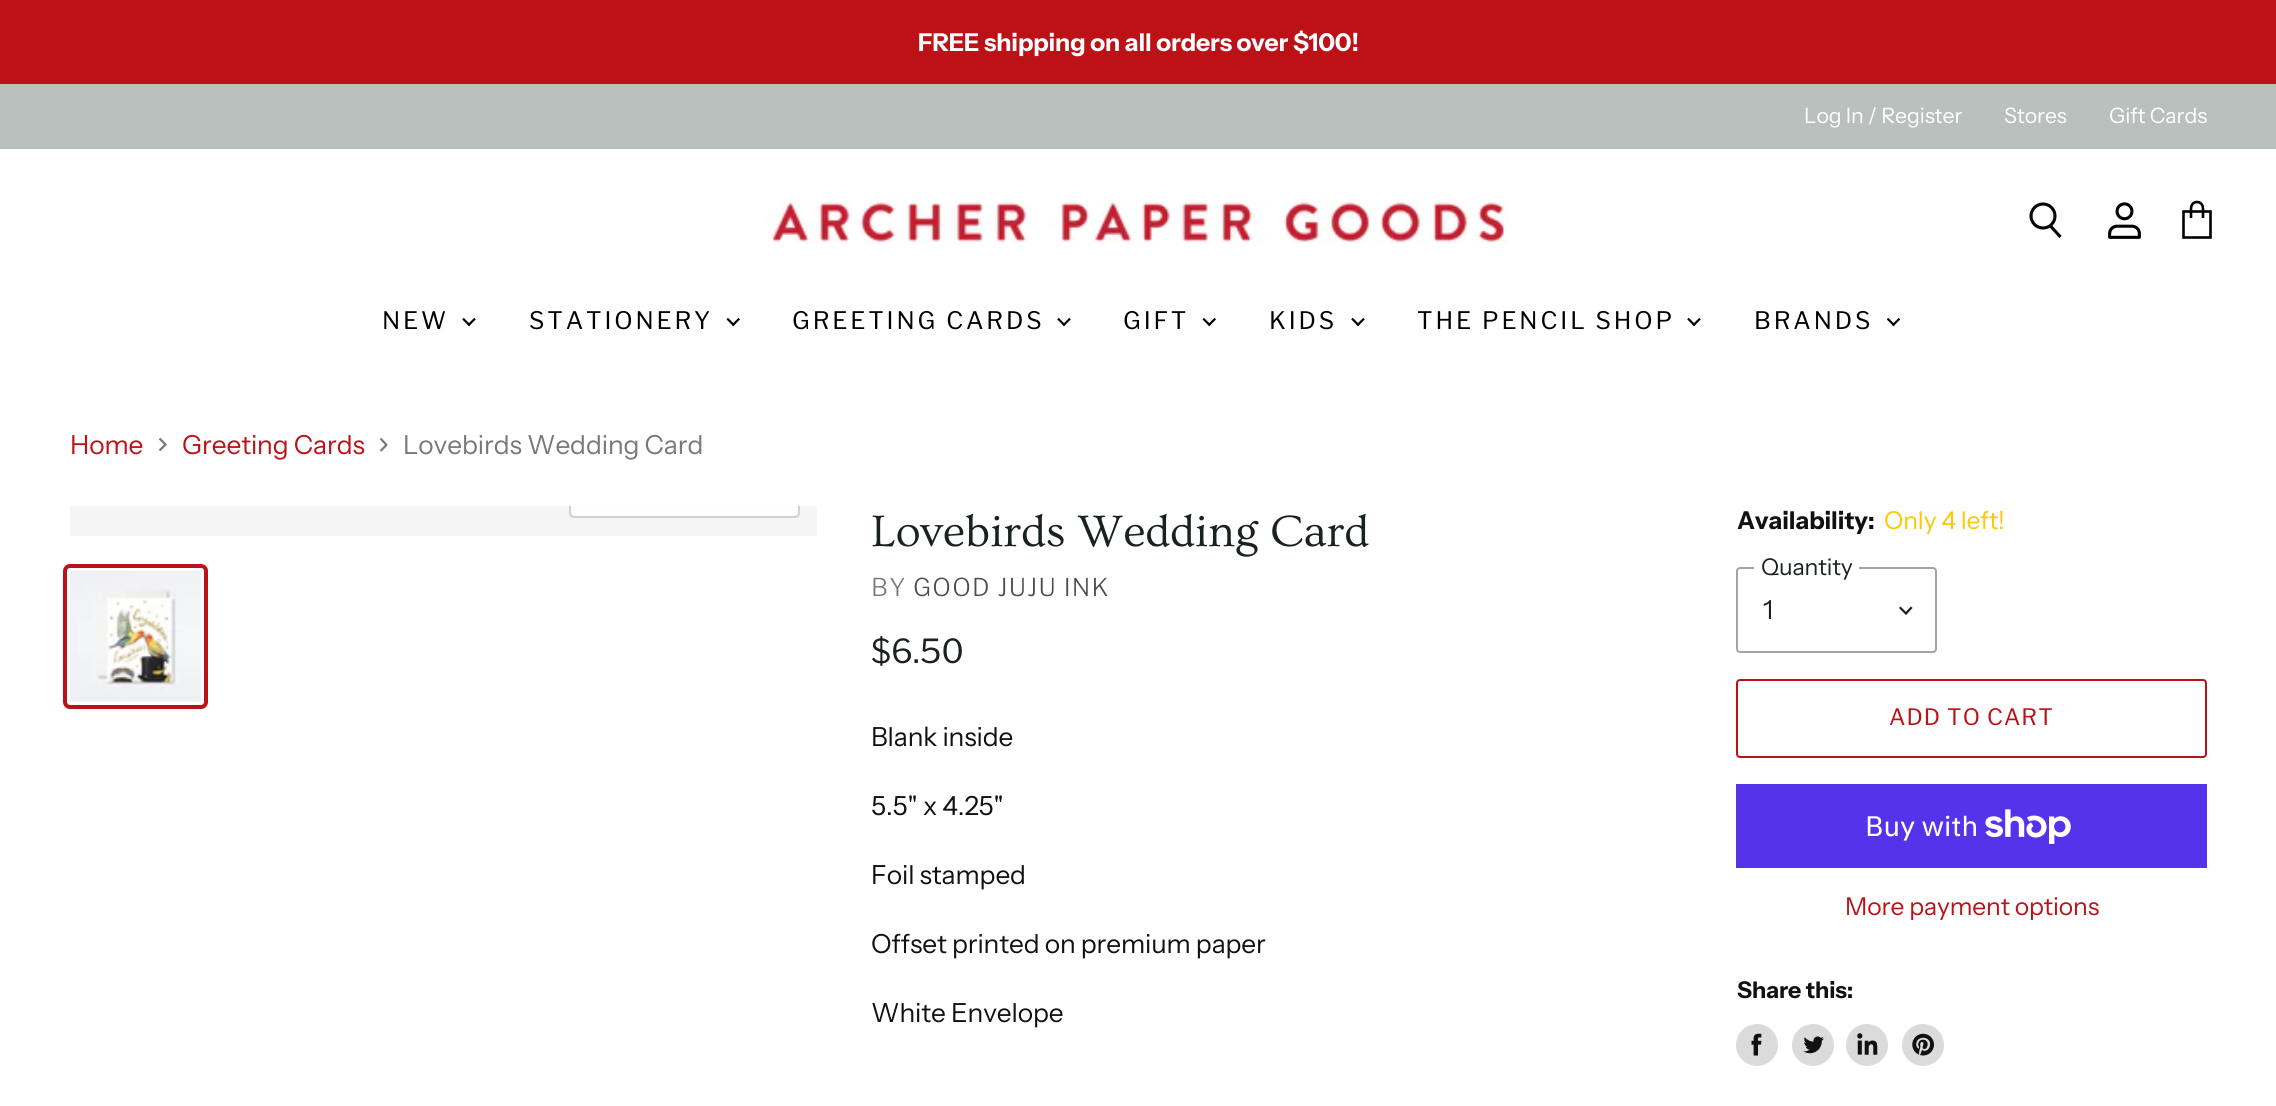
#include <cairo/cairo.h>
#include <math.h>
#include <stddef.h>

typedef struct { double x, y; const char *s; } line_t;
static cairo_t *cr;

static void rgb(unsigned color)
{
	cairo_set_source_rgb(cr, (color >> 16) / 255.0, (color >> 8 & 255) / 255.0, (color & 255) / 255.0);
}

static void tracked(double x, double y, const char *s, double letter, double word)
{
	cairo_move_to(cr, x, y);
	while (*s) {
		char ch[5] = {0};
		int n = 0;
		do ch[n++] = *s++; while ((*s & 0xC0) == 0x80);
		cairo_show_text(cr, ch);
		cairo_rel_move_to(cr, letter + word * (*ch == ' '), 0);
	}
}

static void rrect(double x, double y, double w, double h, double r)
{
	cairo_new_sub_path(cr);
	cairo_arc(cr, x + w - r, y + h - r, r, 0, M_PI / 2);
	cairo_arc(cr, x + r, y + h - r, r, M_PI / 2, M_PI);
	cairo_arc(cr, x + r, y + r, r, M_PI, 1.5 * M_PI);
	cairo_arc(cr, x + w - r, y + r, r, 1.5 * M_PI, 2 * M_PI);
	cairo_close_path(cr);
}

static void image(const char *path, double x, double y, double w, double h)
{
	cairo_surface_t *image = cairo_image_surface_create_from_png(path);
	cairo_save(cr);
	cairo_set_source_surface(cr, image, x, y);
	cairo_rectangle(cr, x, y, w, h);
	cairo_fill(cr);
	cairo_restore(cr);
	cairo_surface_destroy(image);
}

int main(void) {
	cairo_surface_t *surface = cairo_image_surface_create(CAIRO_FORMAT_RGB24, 2276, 1106);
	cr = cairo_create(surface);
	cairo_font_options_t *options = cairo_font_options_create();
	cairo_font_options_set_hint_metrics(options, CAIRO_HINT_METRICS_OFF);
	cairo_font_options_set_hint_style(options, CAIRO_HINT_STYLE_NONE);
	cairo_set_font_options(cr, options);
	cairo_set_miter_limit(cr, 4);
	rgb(0xffffff);
	cairo_paint(cr);
	rgb(0xbc1117);
	cairo_rectangle(cr, 0, 0, 2276, 84);
	cairo_fill(cr);
	rgb(0xbac0be);
	cairo_rectangle(cr, 0, 84, 2276, 65);
	cairo_fill(cr);
	image("img/1.png", 766, 200, 743, 44);
	cairo_new_path(cr);
	cairo_move_to(cr, 2060.5, 237);
	cairo_line_to(cr, 2050.5, 226);
	rgb(0x000000);
	cairo_set_line_width(cr, 3.1);
	cairo_stroke(cr);
	cairo_arc(cr, 2043, 216, 12, 0, 2 * M_PI);
	cairo_stroke(cr);
	image("img/2.png", 2108, 202, 33, 37);
	cairo_new_path(cr);
	cairo_move_to(cr, 2183.5, 211.5);
	cairo_line_to(cr, 2210.5, 211.5);
	cairo_line_to(cr, 2210.5, 237.5);
	cairo_line_to(cr, 2183.5, 237.5);
	cairo_close_path(cr);
	cairo_move_to(cr, 2203, 218);
	cairo_line_to(cr, 2203, 209);
	cairo_curve_to(cr, 2203, 204.5, 2200.5, 202, 2197, 202);
	cairo_curve_to(cr, 2193.5, 202, 2191, 204.5, 2191, 209);
	cairo_line_to(cr, 2191, 218);
	cairo_set_line_width(cr, 2.6);
	cairo_stroke(cr);
	image("img/3.png", 462, 317, 14, 10);
	image("img/4.png", 726, 317, 14, 10);
	image("img/3.png", 1057, 317, 14, 10);
	image("img/4.png", 1202, 317, 14, 10);
	image("img/3.png", 1351, 317, 14, 10);
	image("img/3.png", 1687, 317, 14, 10);
	image("img/5.png", 1887, 317, 14, 10);
	cairo_new_path(cr);
	cairo_move_to(cr, 159.5, 450.5);
	cairo_line_to(cr, 165.5, 444.5);
	cairo_line_to(cr, 159.5, 438.5);
	rgb(0x757977);
	cairo_set_line_width(cr, 2.2);
	cairo_stroke(cr);
	cairo_save(cr);
	cairo_new_path(cr);
	cairo_move_to(cr, 379, 452);
	cairo_line_to(cr, 379, 438);
	cairo_line_to(cr, 387.5, 438);
	cairo_line_to(cr, 387.5, 452);
	cairo_close_path(cr);
	cairo_clip(cr);
	cairo_new_path(cr);
	cairo_move_to(cr, 380.5, 451);
	cairo_line_to(cr, 386.5, 445);
	cairo_line_to(cr, 380.5, 438.5);
	cairo_stroke(cr);
	cairo_restore(cr);
	rgb(0xf5f5f5);
	cairo_rectangle(cr, 70, 506, 747, 30);
	cairo_fill(cr);
	cairo_save(cr);
	cairo_rectangle(cr, 70, 506, 747, 30);
	cairo_clip(cr);
	rrect(570, 468, 229, 49, 4);
	rgb(0xd0d0d0);
	cairo_set_line_width(cr, 2);
	cairo_stroke(cr);
	cairo_restore(cr);
	cairo_set_source_rgba(cr, 1, 1, 1, 0.9);
	cairo_new_path(cr);
	cairo_move_to(cr, 571, 506);
	cairo_line_to(cr, 798, 506);
	cairo_line_to(cr, 798, 512);
	cairo_curve_to(cr, 798, 514, 796, 516, 794, 516);
	cairo_line_to(cr, 575, 516);
	cairo_curve_to(cr, 573, 516, 571, 514, 571, 512);
	cairo_close_path(cr);
	cairo_fill(cr);
	rrect(65, 566, 141, 141, 5);
	rgb(0xbc1117);
	cairo_set_line_width(cr, 4);
	cairo_stroke(cr);
	image("img/6.png", 70, 570, 132, 132);
	rrect(1737, 568, 199, 84, 3);
	rgb(0xa1a6a4);
	cairo_set_line_width(cr, 2);
	cairo_stroke(cr);
	rgb(0xffffff);
	cairo_rectangle(cr, 1754, 567, 105, 2);
	cairo_fill(cr);
	cairo_new_path(cr);
	cairo_move_to(cr, 1906, 613.5);
	cairo_line_to(cr, 1911, 608);
	cairo_move_to(cr, 1906, 613.5);
	cairo_line_to(cr, 1900.5, 608);
	rgb(0x1b2120);
	cairo_set_line_width(cr, 2.2);
	cairo_set_line_cap(cr, CAIRO_LINE_CAP_SQUARE);
	cairo_stroke(cr);
	rrect(1737, 680, 469, 77, 3);
	rgb(0xbc1117);
	cairo_set_line_width(cr, 2);
	cairo_set_line_cap(cr, CAIRO_LINE_CAP_BUTT);
	cairo_stroke(cr);
	rgb(0x5433eb);
	cairo_rectangle(cr, 1736, 784, 471, 84);
	cairo_fill(cr);
	image("img/7.png", 1985, 809, 86, 35);
	rgb(0xdbdbdb);
	cairo_arc(cr, 1757, 1045, 21, 0, 2 * M_PI);
	cairo_fill(cr);
	image("img/8.png", 1751, 1033, 11, 23);
	cairo_arc(cr, 1813, 1045, 21, 0, 2 * M_PI);
	cairo_fill(cr);
	image("img/9.png", 1803, 1036, 21, 18);
	cairo_arc(cr, 1867, 1045, 21, 0, 2 * M_PI);
	cairo_fill(cr);
	image("img/10.png", 1857, 1033, 21, 22);
	cairo_arc(cr, 1923, 1045, 21, 0, 2 * M_PI);
	cairo_fill(cr);
	image("img/11.png", 1912, 1033, 22, 23);
	cairo_select_font_face(cr, "Instrument Sans", CAIRO_FONT_SLANT_NORMAL, CAIRO_FONT_WEIGHT_BOLD);
	cairo_set_font_size(cr, 24.6);
	rgb(0xffffff);
	tracked(918, 51, "FREE shipping on all orders over $100!", -0.1, 0);
	cairo_select_font_face(cr, "Instrument Sans", CAIRO_FONT_SLANT_NORMAL, CAIRO_FONT_WEIGHT_NORMAL);
	cairo_set_font_size(cr, 21.25);
	{
		static const line_t items[] = {
			{1804, 123, "Log In / Register"},
			{2004, 123, "Stores"},
			{2109, 123, "Gift Cards"},
		};
		for (size_t i = 0; i < sizeof items / sizeof *items; i++) {
			tracked(items[i].x, items[i].y, items[i].s, -0.1, 0);
		}
	}
	cairo_select_font_face(cr, "Libre Franklin", CAIRO_FONT_SLANT_NORMAL, CAIRO_FONT_WEIGHT_NORMAL);
	cairo_set_font_size(cr, 24);
	rgb(0x000000);
	{
		static const line_t items[] = {
			{382, 329, "NEW"},
			{529, 329, "STATIONERY"},
			{792, 329, "GREETING CARDS"},
			{1123, 329, "GIFT"},
			{1269, 329, "KIDS"},
			{1417, 329, "THE PENCIL SHOP"},
			{1754, 329, "BRANDS"},
		};
		for (size_t i = 0; i < sizeof items / sizeof *items; i++) {
			tracked(items[i].x, items[i].y, items[i].s, 2.9, 0);
		}
	}
	cairo_select_font_face(cr, "Instrument Sans", CAIRO_FONT_SLANT_NORMAL, CAIRO_FONT_WEIGHT_NORMAL);
	cairo_set_font_size(cr, 26.25);
	rgb(0xbc1117);
	tracked(70, 454, "Home", -0.1, 0);
	tracked(182, 454, "Greeting Cards", -0.1, 0);
	rgb(0x757977);
	tracked(403, 454, "Lovebirds Wedding Card", -0.1, 0);
	cairo_select_font_face(cr, "Ovo", CAIRO_FONT_SLANT_NORMAL, CAIRO_FONT_WEIGHT_NORMAL);
	cairo_set_font_size(cr, 46);
	rgb(0x1b2120);
	cairo_move_to(cr, 871, 546);
	cairo_show_text(cr, "Lovebirds Wedding Card");
	cairo_select_font_face(cr, "Libre Franklin Light", CAIRO_FONT_SLANT_NORMAL, CAIRO_FONT_WEIGHT_NORMAL);
	cairo_set_font_size(cr, 24.5);
	rgb(0x757977);
	tracked(871, 596, "BY", 1.25, 0);
	rgb(0x494e4d);
	tracked(913, 596, "GOOD JUJU INK", 1.25, 0);
	cairo_select_font_face(cr, "Libre Franklin", CAIRO_FONT_SLANT_NORMAL, CAIRO_FONT_WEIGHT_NORMAL);
	cairo_set_font_size(cr, 33);
	rgb(0x1b2120);
	cairo_move_to(cr, 871, 663);
	cairo_show_text(cr, "$6.50");
	cairo_select_font_face(cr, "Instrument Sans", CAIRO_FONT_SLANT_NORMAL, CAIRO_FONT_WEIGHT_NORMAL);
	cairo_set_font_size(cr, 26.25);
	rgb(0x111111);
	{
		static const line_t items[] = {
			{871, 746, "Blank inside"},
			{871, 815, "5.5\" x 4.25\""},
			{871, 884, "Foil stamped"},
			{871, 953, "Offset printed on premium paper"},
			{871, 1022, "White Envelope"},
		};
		for (size_t i = 0; i < sizeof items / sizeof *items; i++) {
			tracked(items[i].x, items[i].y, items[i].s, -0.1, 0);
		}
	}
	cairo_select_font_face(cr, "Instrument Sans", CAIRO_FONT_SLANT_NORMAL, CAIRO_FONT_WEIGHT_BOLD);
	cairo_set_font_size(cr, 24.6);
	tracked(1737, 529, "Availability:", -0.1, 0);
	cairo_select_font_face(cr, "Instrument Sans", CAIRO_FONT_SLANT_NORMAL, CAIRO_FONT_WEIGHT_NORMAL);
	rgb(0xffc700);
	tracked(1884, 529, "Only 4 left!", -0.1, 0);
	cairo_set_font_size(cr, 23);
	rgb(0x1b2120);
	tracked(1761, 575, "Quantity", -0.1, 0);
	cairo_set_font_size(cr, 26.25);
	tracked(1763, 619, "1", -0.1, 0);
	cairo_select_font_face(cr, "Libre Franklin", CAIRO_FONT_SLANT_NORMAL, CAIRO_FONT_WEIGHT_NORMAL);
	cairo_set_font_size(cr, 22.5);
	rgb(0xbc1117);
	tracked(1889, 725, "ADD TO CART", 1.1, 0);
	cairo_select_font_face(cr, "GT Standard", CAIRO_FONT_SLANT_NORMAL, CAIRO_FONT_WEIGHT_NORMAL);
	cairo_set_font_size(cr, 28);
	rgb(0xffffff);
	tracked(1865, 836, "Buy with", -0.1, 0);
	cairo_select_font_face(cr, "Instrument Sans", CAIRO_FONT_SLANT_NORMAL, CAIRO_FONT_WEIGHT_NORMAL);
	cairo_set_font_size(cr, 24.6);
	rgb(0xbc1117);
	tracked(1845, 915, "More payment options", -0.1, 0);
	cairo_select_font_face(cr, "Instrument Sans", CAIRO_FONT_SLANT_NORMAL, CAIRO_FONT_WEIGHT_BOLD);
	cairo_set_font_size(cr, 23);
	rgb(0x111111);
	tracked(1737, 998, "Share this:", -0.1, 0);
	cairo_surface_write_to_png(surface, "page.png");
	cairo_font_options_destroy(options);
	cairo_destroy(cr);
	cairo_surface_destroy(surface);
	return 0;
}
